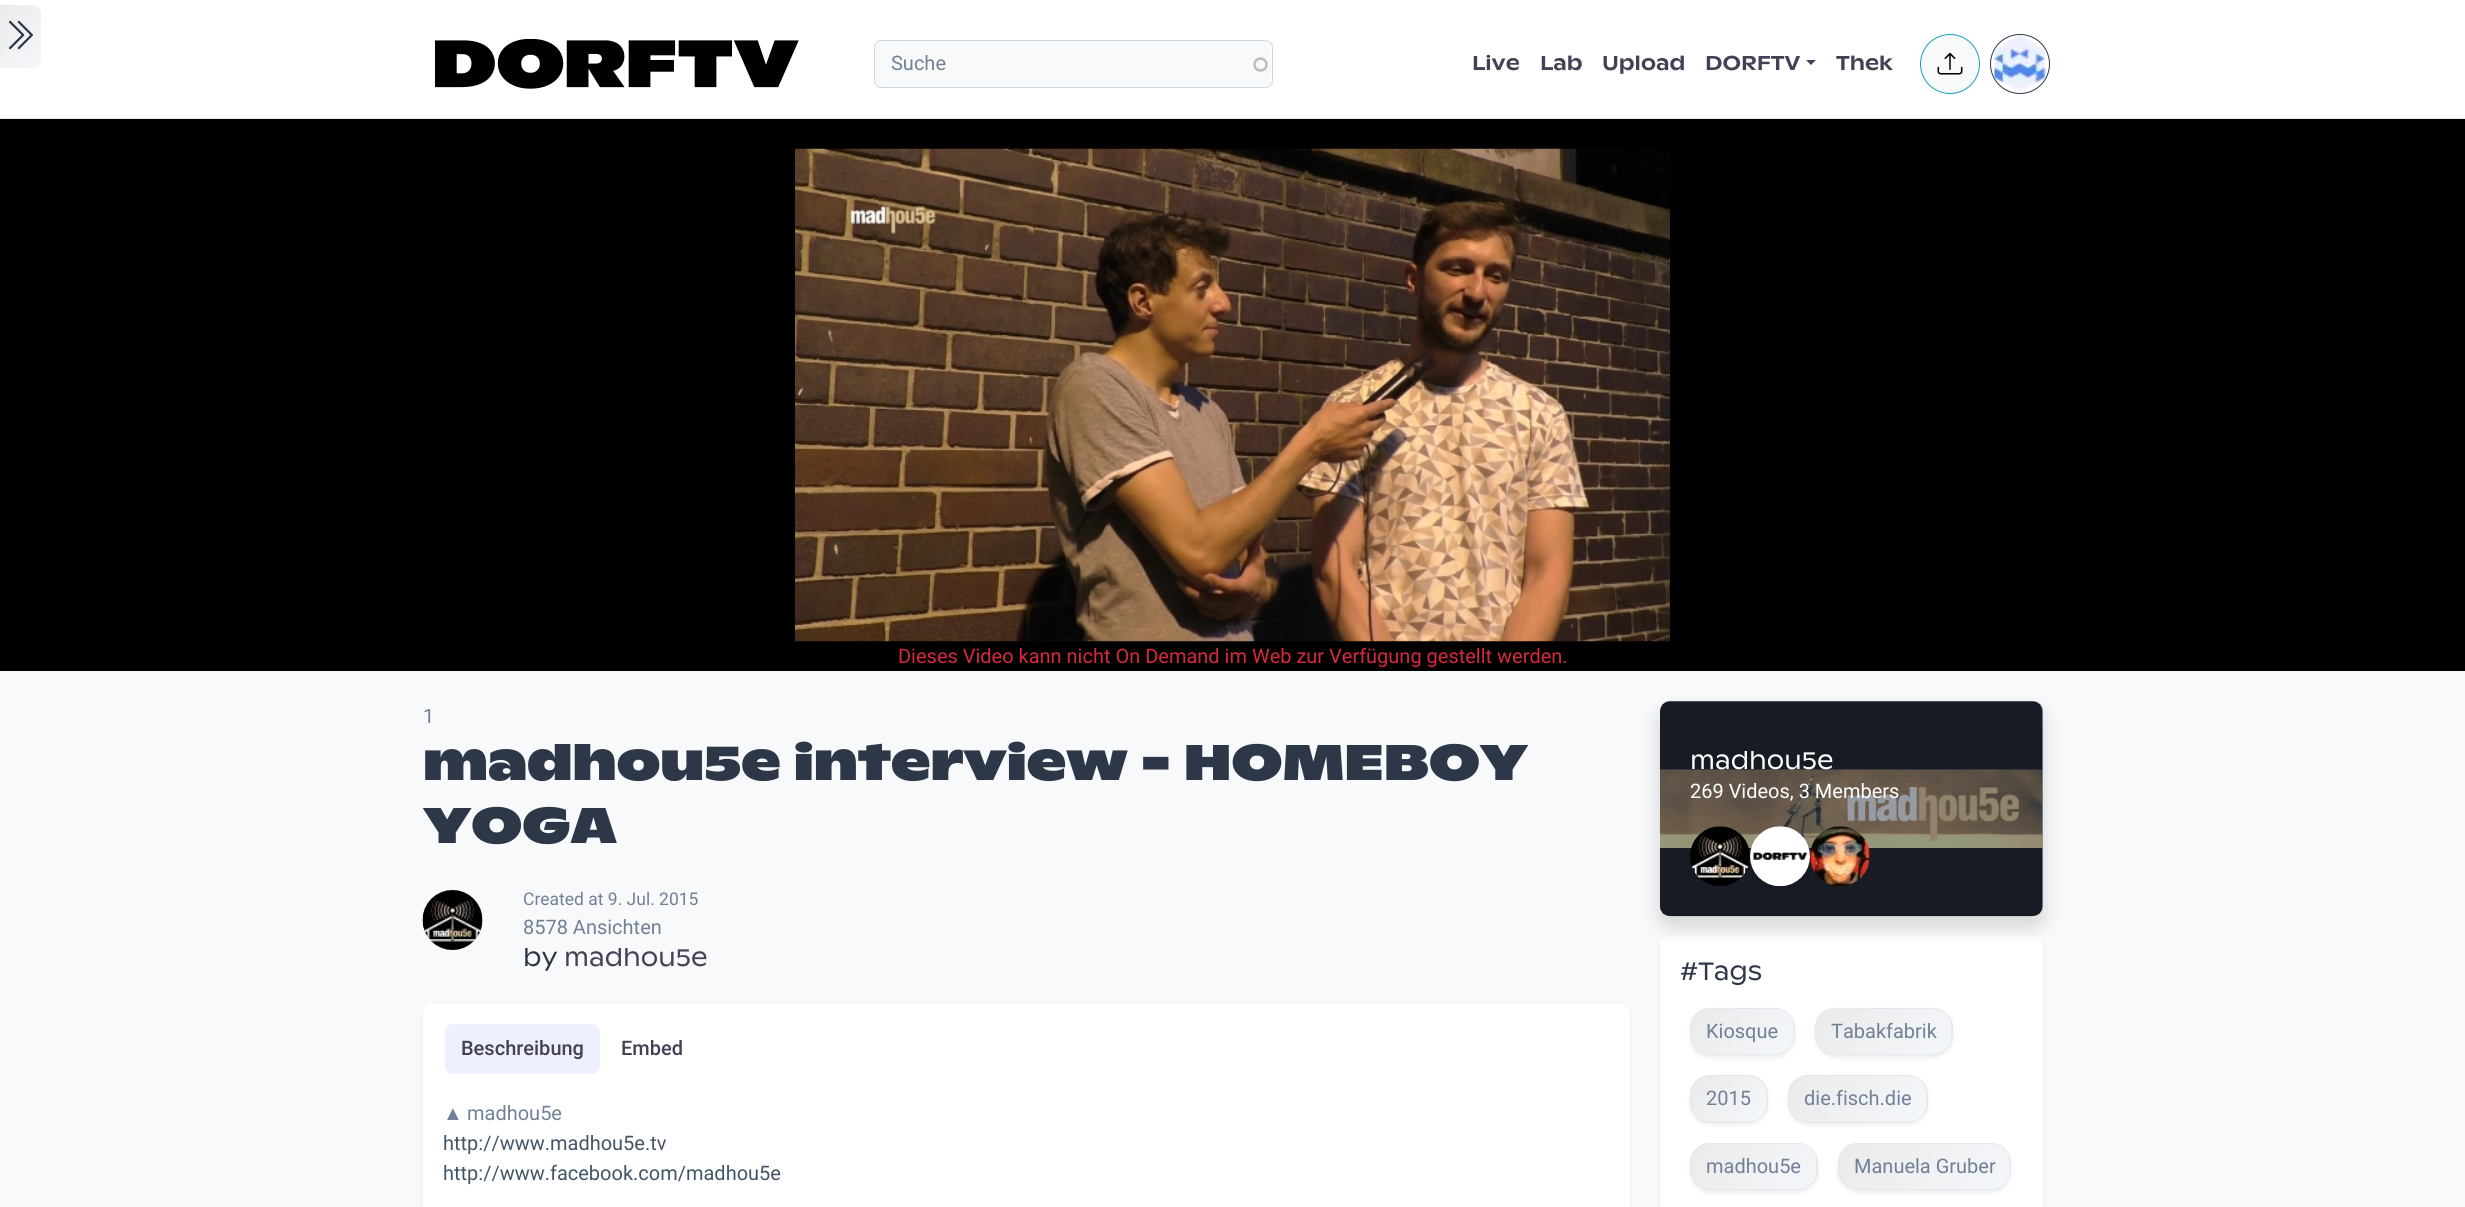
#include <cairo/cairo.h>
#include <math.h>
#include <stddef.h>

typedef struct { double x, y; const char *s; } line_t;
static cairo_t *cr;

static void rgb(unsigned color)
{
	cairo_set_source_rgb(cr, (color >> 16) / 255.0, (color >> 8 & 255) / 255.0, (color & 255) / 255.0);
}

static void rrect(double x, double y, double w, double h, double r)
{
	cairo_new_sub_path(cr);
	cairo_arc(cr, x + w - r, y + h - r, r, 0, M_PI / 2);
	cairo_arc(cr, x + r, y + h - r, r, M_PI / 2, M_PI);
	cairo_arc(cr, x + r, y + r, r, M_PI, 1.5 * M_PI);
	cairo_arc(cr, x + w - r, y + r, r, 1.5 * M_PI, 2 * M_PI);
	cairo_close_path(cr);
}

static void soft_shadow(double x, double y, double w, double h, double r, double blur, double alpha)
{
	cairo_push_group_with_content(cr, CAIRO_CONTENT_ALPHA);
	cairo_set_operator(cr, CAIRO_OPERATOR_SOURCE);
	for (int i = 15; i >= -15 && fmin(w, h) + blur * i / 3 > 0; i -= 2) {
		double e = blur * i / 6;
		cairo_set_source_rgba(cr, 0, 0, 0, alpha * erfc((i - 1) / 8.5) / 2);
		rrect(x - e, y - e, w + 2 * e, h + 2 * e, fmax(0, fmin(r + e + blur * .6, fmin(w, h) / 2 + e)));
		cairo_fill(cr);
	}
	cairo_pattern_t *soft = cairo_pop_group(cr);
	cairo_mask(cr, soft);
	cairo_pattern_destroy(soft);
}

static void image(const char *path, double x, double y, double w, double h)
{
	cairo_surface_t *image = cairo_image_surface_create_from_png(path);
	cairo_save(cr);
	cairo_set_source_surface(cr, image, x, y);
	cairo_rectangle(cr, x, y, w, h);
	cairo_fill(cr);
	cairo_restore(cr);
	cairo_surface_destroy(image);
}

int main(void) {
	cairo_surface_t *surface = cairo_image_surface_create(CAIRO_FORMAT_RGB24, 2465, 1207);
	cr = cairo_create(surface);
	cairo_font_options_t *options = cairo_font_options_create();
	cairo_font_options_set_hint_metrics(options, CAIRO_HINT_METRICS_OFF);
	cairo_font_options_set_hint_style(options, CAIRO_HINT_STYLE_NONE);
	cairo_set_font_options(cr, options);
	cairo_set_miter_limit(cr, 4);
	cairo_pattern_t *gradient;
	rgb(0xf8f9fa);
	cairo_paint(cr);
	rgb(0xffffff);
	cairo_rectangle(cr, 0, 0, 2465, 118);
	cairo_fill(cr);
	gradient = cairo_pattern_create_linear(47, 60, -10, 12);
	cairo_pattern_add_color_stop_rgba(gradient, 0, 0.957, 0.969, 0.984, 1);
	cairo_pattern_add_color_stop_rgba(gradient, 1, 0.918, 0.918, 0.918, 1);
	cairo_set_source(cr, gradient);
	cairo_pattern_destroy(gradient);
	cairo_new_path(cr);
	cairo_move_to(cr, -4, 5);
	cairo_line_to(cr, 33, 5);
	cairo_curve_to(cr, 37.5, 5, 41, 8.5, 41, 13);
	cairo_line_to(cr, 41, 60);
	cairo_curve_to(cr, 41, 64.5, 37.5, 68, 33, 68);
	cairo_line_to(cr, -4, 68);
	cairo_close_path(cr);
	cairo_fill(cr);
	image("img/1.png", 9, 20, 24, 30);
	rgb(0xe2e8f0);
	cairo_rectangle(cr, 0, 118, 2465, 1);
	cairo_fill(cr);
	image("img/2.png", 435, 39, 364, 50);
	rgb(0xf8f9fa);
	rrect(875, 41, 396, 45, 6);
	cairo_fill(cr);
	cairo_arc(cr, 1260.5, 64.5, 6, 0, 2 * M_PI);
	rgb(0xbcbcbc);
	cairo_set_line_width(cr, 2.5);
	cairo_stroke(cr);
	rrect(874.5, 40.5, 398, 47, 7.5);
	rgb(0xcbd5e0);
	cairo_set_line_width(cr, 1);
	cairo_stroke(cr);
	rgb(0x454056);
	cairo_new_path(cr);
	cairo_move_to(cr, 1806, 60);
	cairo_line_to(cr, 1816, 60);
	cairo_line_to(cr, 1811, 65);
	cairo_close_path(cr);
	cairo_fill(cr);
	rgb(0xf8f9fa);
	cairo_arc(cr, 1950, 64, 29.5, 0, 2 * M_PI);
	cairo_fill_preserve(cr);
	rgb(0x17a2b8);
	cairo_stroke(cr);
	image("img/3.png", 1937, 52, 26, 23);
	cairo_arc(cr, 2020, 64, 29.5, 0, 2 * M_PI);
	rgb(0x2d3748);
	cairo_stroke(cr);
	image("img/4.png", 1993, 35, 53, 57);
	rgb(0x000000);
	cairo_rectangle(cr, 0, 119, 2465, 552);
	cairo_fill(cr);
	image("img/5.png", 795, 148, 875, 494);
	image("img/6.png", 422, 890, 61, 60);
	rgb(0x000000);
	soft_shadow(423, 1006, 1207, 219, 10, 2.5, 0.07);
	rgb(0xffffff);
	rrect(423, 1004, 1207, 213, 10);
	cairo_fill(cr);
	rgb(0xedf0fe);
	rrect(445, 1024, 155, 50, 8);
	cairo_fill(cr);
	rgb(0xffffff);
	rrect(1660, 701, 383, 215, 8);
	cairo_fill(cr);
	rgb(0x000000);
	soft_shadow(1660, 939, 383, 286, 10, 2.5, 0.07);
	rgb(0xffffff);
	rrect(1660, 936, 383, 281, 10);
	cairo_fill(cr);
	rgb(0x000000);
	soft_shadow(1660, 711, 383, 215, 10, 10, 0.15);
	image("img/7.png", 1660, 701, 383, 216);
	cairo_set_source_rgba(cr, 0.176, 0.216, 0.282, 0.5);
	rrect(1660, 701, 383, 215, 10);
	cairo_fill(cr);
	image("img/8.png", 1690, 826, 60, 60);
	image("img/9.png", 1750, 826, 60, 61);
	image("img/10.png", 1810, 826, 60, 60);
	rgb(0x000000);
	soft_shadow(1690, 1010, 105, 48, 20, 2.5, 0.07);
	cairo_save(cr);
	rrect(1690, 1008, 105, 47, 20);
	cairo_clip(cr);
	gradient = cairo_pattern_create_linear(1784, 1066, 1701, 997);
	cairo_pattern_add_color_stop_rgba(gradient, 0, 0.957, 0.969, 0.984, 1);
	cairo_pattern_add_color_stop_rgba(gradient, 1, 0.918, 0.918, 0.918, 1);
	cairo_set_source(cr, gradient);
	cairo_pattern_destroy(gradient);
	cairo_rectangle(cr, 1691, 1009, 103, 45);
	cairo_fill(cr);
	cairo_restore(cr);
	rrect(1690.5, 1008.5, 104, 46, 19.5);
	rgb(0xe2e8f0);
	cairo_stroke(cr);
	rgb(0x000000);
	soft_shadow(1815, 1010, 138, 48, 20, 2.5, 0.07);
	cairo_save(cr);
	rrect(1815, 1008, 138, 47, 20);
	cairo_clip(cr);
	gradient = cairo_pattern_create_linear(1934, 1074, 1833, 989);
	cairo_pattern_add_color_stop_rgba(gradient, 0, 0.957, 0.969, 0.984, 1);
	cairo_pattern_add_color_stop_rgba(gradient, 1, 0.918, 0.918, 0.918, 1);
	cairo_set_source(cr, gradient);
	cairo_pattern_destroy(gradient);
	cairo_rectangle(cr, 1816, 1009, 135, 45);
	cairo_fill(cr);
	gradient = cairo_pattern_create_linear(2069, 1074, 1968, 989);
	cairo_pattern_add_color_stop_rgba(gradient, 0, 0.957, 0.969, 0.984, 1);
	cairo_pattern_add_color_stop_rgba(gradient, 1, 0.918, 0.918, 0.918, 1);
	cairo_set_source(cr, gradient);
	cairo_pattern_destroy(gradient);
	cairo_rectangle(cr, 1951, 1019, 2, 25);
	cairo_fill(cr);
	cairo_restore(cr);
	rrect(1815.5, 1008.5, 137, 46, 19.5);
	rgb(0xe2e8f0);
	cairo_stroke(cr);
	rgb(0x000000);
	soft_shadow(1690, 1078, 78, 47, 20, 2.5, 0.07);
	cairo_save(cr);
	rrect(1690, 1075, 78, 48, 20);
	cairo_clip(cr);
	gradient = cairo_pattern_create_linear(1762, 1127, 1696, 1071);
	cairo_pattern_add_color_stop_rgba(gradient, 0, 0.957, 0.969, 0.984, 1);
	cairo_pattern_add_color_stop_rgba(gradient, 1, 0.918, 0.918, 0.918, 1);
	cairo_set_source(cr, gradient);
	cairo_pattern_destroy(gradient);
	cairo_rectangle(cr, 1691, 1076, 75, 45);
	cairo_fill(cr);
	gradient = cairo_pattern_create_linear(1837, 1127, 1771, 1071);
	cairo_pattern_add_color_stop_rgba(gradient, 0, 0.957, 0.969, 0.984, 1);
	cairo_pattern_add_color_stop_rgba(gradient, 1, 0.918, 0.918, 0.918, 1);
	cairo_set_source(cr, gradient);
	cairo_pattern_destroy(gradient);
	cairo_rectangle(cr, 1766, 1086, 2, 26);
	cairo_fill(cr);
	gradient = cairo_pattern_create_linear(1762, 1172, 1696, 1116);
	cairo_pattern_add_color_stop_rgba(gradient, 0, 0.957, 0.969, 0.984, 1);
	cairo_pattern_add_color_stop_rgba(gradient, 1, 0.918, 0.918, 0.918, 1);
	cairo_set_source(cr, gradient);
	cairo_pattern_destroy(gradient);
	cairo_rectangle(cr, 1701, 1121, 56, 2);
	cairo_fill(cr);
	cairo_restore(cr);
	rrect(1690.5, 1075.5, 77, 47, 19.5);
	rgb(0xe2e8f0);
	cairo_stroke(cr);
	rgb(0x000000);
	soft_shadow(1788, 1078, 140, 47, 20, 2.5, 0.07);
	cairo_save(cr);
	rrect(1788, 1075, 140, 48, 20);
	cairo_clip(cr);
	gradient = cairo_pattern_create_linear(1909, 1142, 1806, 1056);
	cairo_pattern_add_color_stop_rgba(gradient, 0, 0.957, 0.969, 0.984, 1);
	cairo_pattern_add_color_stop_rgba(gradient, 1, 0.918, 0.918, 0.918, 1);
	cairo_set_source(cr, gradient);
	cairo_pattern_destroy(gradient);
	cairo_rectangle(cr, 1789, 1076, 137, 45);
	cairo_fill(cr);
	gradient = cairo_pattern_create_linear(2046, 1142, 1944, 1056);
	cairo_pattern_add_color_stop_rgba(gradient, 0, 0.957, 0.969, 0.984, 1);
	cairo_pattern_add_color_stop_rgba(gradient, 1, 0.918, 0.918, 0.918, 1);
	cairo_set_source(cr, gradient);
	cairo_pattern_destroy(gradient);
	cairo_rectangle(cr, 1926, 1086, 2, 26);
	cairo_fill(cr);
	gradient = cairo_pattern_create_linear(1909, 1187, 1806, 1101);
	cairo_pattern_add_color_stop_rgba(gradient, 0, 0.957, 0.969, 0.984, 1);
	cairo_pattern_add_color_stop_rgba(gradient, 1, 0.918, 0.918, 0.918, 1);
	cairo_set_source(cr, gradient);
	cairo_pattern_destroy(gradient);
	cairo_rectangle(cr, 1799, 1121, 118, 2);
	cairo_fill(cr);
	cairo_restore(cr);
	rrect(1788.5, 1075.5, 139, 47, 19.5);
	rgb(0xe2e8f0);
	cairo_stroke(cr);
	rgb(0x000000);
	soft_shadow(1690, 1145, 128, 48, 20, 2.5, 0.07);
	cairo_save(cr);
	rrect(1690, 1143, 128, 47, 20);
	cairo_clip(cr);
	gradient = cairo_pattern_create_linear(1802, 1206, 1706, 1126);
	cairo_pattern_add_color_stop_rgba(gradient, 0, 0.957, 0.969, 0.984, 1);
	cairo_pattern_add_color_stop_rgba(gradient, 1, 0.918, 0.918, 0.918, 1);
	cairo_set_source(cr, gradient);
	cairo_pattern_destroy(gradient);
	cairo_rectangle(cr, 1691, 1144, 125, 45);
	cairo_fill(cr);
	gradient = cairo_pattern_create_linear(1927, 1206, 1831, 1126);
	cairo_pattern_add_color_stop_rgba(gradient, 0, 0.957, 0.969, 0.984, 1);
	cairo_pattern_add_color_stop_rgba(gradient, 1, 0.918, 0.918, 0.918, 1);
	cairo_set_source(cr, gradient);
	cairo_pattern_destroy(gradient);
	cairo_rectangle(cr, 1816, 1154, 2, 25);
	cairo_fill(cr);
	cairo_restore(cr);
	rrect(1690.5, 1143.5, 127, 46, 19.5);
	rgb(0xe2e8f0);
	cairo_stroke(cr);
	rgb(0x000000);
	soft_shadow(1838, 1145, 173, 48, 20, 2.5, 0.07);
	cairo_save(cr);
	rrect(1838, 1143, 173, 47, 20);
	cairo_clip(cr);
	gradient = cairo_pattern_create_linear(1986, 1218, 1863, 1115);
	cairo_pattern_add_color_stop_rgba(gradient, 0, 0.957, 0.969, 0.984, 1);
	cairo_pattern_add_color_stop_rgba(gradient, 1, 0.918, 0.918, 0.918, 1);
	cairo_set_source(cr, gradient);
	cairo_pattern_destroy(gradient);
	cairo_rectangle(cr, 1839, 1144, 171, 45);
	cairo_fill(cr);
	cairo_restore(cr);
	rrect(1838.5, 1143.5, 172, 46, 19.5);
	rgb(0xe2e8f0);
	cairo_stroke(cr);
	cairo_select_font_face(cr, "Roboto", CAIRO_FONT_SLANT_NORMAL, CAIRO_FONT_WEIGHT_NORMAL);
	cairo_set_font_size(cr, 20);
	rgb(0x718096);
	cairo_move_to(cr, 891, 70);
	cairo_show_text(cr, "Suche");
	cairo_select_font_face(cr, "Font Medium", CAIRO_FONT_SLANT_NORMAL, CAIRO_FONT_WEIGHT_NORMAL);
	rgb(0x454056);
	{
		static const line_t items[] = {
			{1472, 70, "Live"},
			{1540, 70, "Lab"},
			{1602, 70, "Upload"},
			{1705, 70, "DORFTV"},
			{1836, 70, "Thek"},
		};
		for (size_t i = 0; i < sizeof items / sizeof *items; i++) {
			cairo_move_to(cr, items[i].x, items[i].y);
			cairo_show_text(cr, items[i].s);
		}
	}
	cairo_select_font_face(cr, "Roboto", CAIRO_FONT_SLANT_NORMAL, CAIRO_FONT_WEIGHT_NORMAL);
	rgb(0xd6293e);
	cairo_move_to(cr, 898, 663);
	cairo_show_text(cr, "Dieses Video kann nicht On Demand im Web zur Verfügung gestellt werden.");
	rgb(0x718096);
	cairo_move_to(cr, 423, 723);
	cairo_show_text(cr, "1");
	cairo_select_font_face(cr, "Font ExtraBold", CAIRO_FONT_SLANT_NORMAL, CAIRO_FONT_WEIGHT_NORMAL);
	cairo_set_font_size(cr, 50);
	rgb(0x2d3748);
	cairo_move_to(cr, 423, 780);
	cairo_show_text(cr, "madhou5e interview - HOMEBOY");
	cairo_move_to(cr, 423, 843);
	cairo_show_text(cr, "YOGA");
	cairo_select_font_face(cr, "Roboto", CAIRO_FONT_SLANT_NORMAL, CAIRO_FONT_WEIGHT_NORMAL);
	cairo_set_font_size(cr, 17.5);
	rgb(0x718096);
	cairo_move_to(cr, 523, 905);
	cairo_show_text(cr, "Created at 9. Jul. 2015");
	cairo_set_font_size(cr, 20);
	cairo_move_to(cr, 523, 934);
	cairo_show_text(cr, "8578 Ansichten");
	cairo_select_font_face(cr, "Font", CAIRO_FONT_SLANT_NORMAL, CAIRO_FONT_WEIGHT_NORMAL);
	cairo_set_font_size(cr, 25);
	rgb(0x2d3748);
	cairo_move_to(cr, 523, 966);
	cairo_show_text(cr, "by");
	rgb(0x454056);
	cairo_move_to(cr, 564, 966);
	cairo_show_text(cr, "madhou5e");
	cairo_select_font_face(cr, "Roboto Medium", CAIRO_FONT_SLANT_NORMAL, CAIRO_FONT_WEIGHT_NORMAL);
	cairo_set_font_size(cr, 20);
	cairo_move_to(cr, 461, 1055);
	cairo_show_text(cr, "Beschreibung");
	cairo_move_to(cr, 621, 1055);
	cairo_show_text(cr, "Embed");
	cairo_select_font_face(cr, "Liberation Sans", CAIRO_FONT_SLANT_NORMAL, CAIRO_FONT_WEIGHT_NORMAL);
	rgb(0x718096);
	cairo_move_to(cr, 443, 1120);
	cairo_show_text(cr, "▲");
	cairo_select_font_face(cr, "Roboto", CAIRO_FONT_SLANT_NORMAL, CAIRO_FONT_WEIGHT_NORMAL);
	cairo_move_to(cr, 467, 1120);
	cairo_show_text(cr, "madhou5e");
	rgb(0x425466);
	cairo_move_to(cr, 443, 1150);
	cairo_show_text(cr, "http://www.madhou5e.tv");
	cairo_move_to(cr, 443, 1180);
	cairo_show_text(cr, "http://www.facebook.com/madhou5e");
	cairo_select_font_face(cr, "Font", CAIRO_FONT_SLANT_NORMAL, CAIRO_FONT_WEIGHT_NORMAL);
	cairo_set_font_size(cr, 25);
	rgb(0xffffff);
	cairo_move_to(cr, 1690, 769);
	cairo_show_text(cr, "madhou5e");
	cairo_select_font_face(cr, "Roboto", CAIRO_FONT_SLANT_NORMAL, CAIRO_FONT_WEIGHT_NORMAL);
	cairo_set_font_size(cr, 20);
	cairo_move_to(cr, 1690, 798);
	cairo_show_text(cr, "269 Videos, 3 Members");
	cairo_select_font_face(cr, "Font", CAIRO_FONT_SLANT_NORMAL, CAIRO_FONT_WEIGHT_NORMAL);
	cairo_set_font_size(cr, 25);
	rgb(0x2d3748);
	cairo_move_to(cr, 1680, 980);
	cairo_show_text(cr, "#Tags");
	cairo_select_font_face(cr, "Roboto", CAIRO_FONT_SLANT_NORMAL, CAIRO_FONT_WEIGHT_NORMAL);
	cairo_set_font_size(cr, 20);
	rgb(0x718096);
	{
		static const line_t items[] = {
			{1706, 1038, "Kiosque"},
			{1831, 1038, "Tabakfabrik"},
			{1706, 1105, "2015"},
			{1804, 1105, "die.fisch.die"},
			{1706, 1173, "madhou5e"},
			{1854, 1173, "Manuela Gruber"},
		};
		for (size_t i = 0; i < sizeof items / sizeof *items; i++) {
			cairo_move_to(cr, items[i].x, items[i].y);
			cairo_show_text(cr, items[i].s);
		}
	}
	cairo_surface_write_to_png(surface, "page.png");
	cairo_font_options_destroy(options);
	cairo_destroy(cr);
	cairo_surface_destroy(surface);
	return 0;
}
